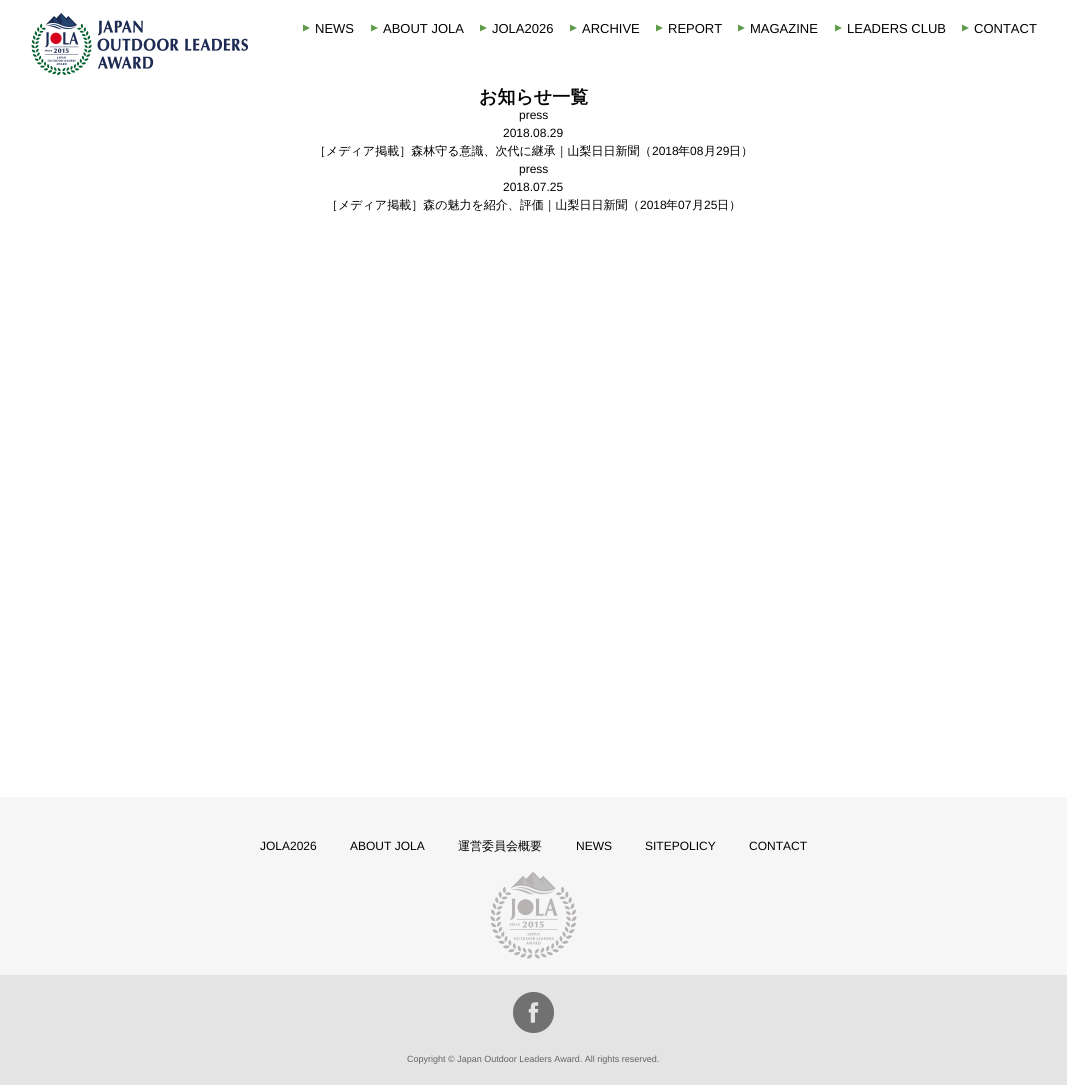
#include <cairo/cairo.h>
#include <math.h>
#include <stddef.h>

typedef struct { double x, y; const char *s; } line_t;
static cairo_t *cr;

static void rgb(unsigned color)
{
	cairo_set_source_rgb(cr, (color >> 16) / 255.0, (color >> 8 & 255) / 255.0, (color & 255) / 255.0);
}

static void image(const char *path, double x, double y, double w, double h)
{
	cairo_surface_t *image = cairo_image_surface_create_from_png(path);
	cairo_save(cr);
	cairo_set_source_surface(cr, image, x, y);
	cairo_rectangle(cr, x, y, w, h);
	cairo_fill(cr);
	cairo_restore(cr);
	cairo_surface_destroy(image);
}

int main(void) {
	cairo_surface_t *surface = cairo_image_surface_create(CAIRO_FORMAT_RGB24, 1067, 1085);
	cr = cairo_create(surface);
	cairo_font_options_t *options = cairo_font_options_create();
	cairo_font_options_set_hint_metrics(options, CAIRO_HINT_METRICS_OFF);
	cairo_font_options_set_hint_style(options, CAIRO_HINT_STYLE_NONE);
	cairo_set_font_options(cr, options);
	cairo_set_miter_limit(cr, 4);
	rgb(0xffffff);
	cairo_paint(cr);
	image("img/1.png", 31, 13, 217, 62);
	image("img/2.png", 303, 24, 7, 8);
	image("img/2.png", 371, 24, 7, 8);
	image("img/2.png", 480, 24, 7, 8);
	image("img/2.png", 570, 24, 7, 8);
	image("img/2.png", 656, 24, 7, 8);
	image("img/2.png", 738, 24, 7, 8);
	image("img/2.png", 835, 24, 7, 8);
	image("img/2.png", 962, 24, 7, 8);
	rgb(0xf6f6f6);
	cairo_rectangle(cr, 0, 797, 1067, 178);
	cairo_fill(cr);
	image("img/3.png", 490, 872, 87, 87);
	rgb(0xe4e4e4);
	cairo_rectangle(cr, 0, 975, 1067, 110);
	cairo_fill(cr);
	image("img/4.png", 513, 992, 41, 41);
	cairo_select_font_face(cr, "Liberation Sans", CAIRO_FONT_SLANT_NORMAL, CAIRO_FONT_WEIGHT_NORMAL);
	cairo_set_font_size(cr, 13);
	rgb(0x000000);
	{
		static const line_t items[] = {
			{315, 33, "NEWS"},
			{383, 33, "ABOUT JOLA"},
			{492, 33, "JOLA2026"},
			{582, 33, "ARCHIVE"},
			{668, 33, "REPORT"},
			{750, 33, "MAGAZINE"},
			{847, 33, "LEADERS CLUB"},
			{974, 33, "CONTACT"},
		};
		for (size_t i = 0; i < sizeof items / sizeof *items; i++) {
			cairo_move_to(cr, items[i].x, items[i].y);
			cairo_show_text(cr, items[i].s);
		}
	}
	cairo_select_font_face(cr, "WenQuanYi Zen Hei", CAIRO_FONT_SLANT_NORMAL, CAIRO_FONT_WEIGHT_BOLD);
	cairo_set_font_size(cr, 18);
	cairo_move_to(cr, 479, 103);
	cairo_show_text(cr, "お知らせ一覧");
	cairo_select_font_face(cr, "Liberation Sans", CAIRO_FONT_SLANT_NORMAL, CAIRO_FONT_WEIGHT_NORMAL);
	cairo_set_font_size(cr, 12);
	cairo_move_to(cr, 519, 119);
	cairo_show_text(cr, "press");
	cairo_move_to(cr, 503, 137);
	cairo_show_text(cr, "2018.08.29");
	cairo_select_font_face(cr, "WenQuanYi Zen Hei Medium", CAIRO_FONT_SLANT_NORMAL, CAIRO_FONT_WEIGHT_NORMAL);
	cairo_move_to(cr, 314, 155);
	cairo_show_text(cr, "［メディア掲載］森林守る意識、次代に継承｜山梨日日新聞（");
	cairo_select_font_face(cr, "Liberation Sans", CAIRO_FONT_SLANT_NORMAL, CAIRO_FONT_WEIGHT_NORMAL);
	cairo_move_to(cr, 652, 155);
	cairo_show_text(cr, "2018");
	cairo_select_font_face(cr, "WenQuanYi Zen Hei Medium", CAIRO_FONT_SLANT_NORMAL, CAIRO_FONT_WEIGHT_NORMAL);
	cairo_move_to(cr, 678, 155);
	cairo_show_text(cr, "年");
	cairo_select_font_face(cr, "Liberation Sans", CAIRO_FONT_SLANT_NORMAL, CAIRO_FONT_WEIGHT_NORMAL);
	cairo_move_to(cr, 690, 155);
	cairo_show_text(cr, "08");
	cairo_select_font_face(cr, "WenQuanYi Zen Hei Medium", CAIRO_FONT_SLANT_NORMAL, CAIRO_FONT_WEIGHT_NORMAL);
	cairo_move_to(cr, 704, 155);
	cairo_show_text(cr, "月");
	cairo_select_font_face(cr, "Liberation Sans", CAIRO_FONT_SLANT_NORMAL, CAIRO_FONT_WEIGHT_NORMAL);
	cairo_move_to(cr, 716, 155);
	cairo_show_text(cr, "29");
	cairo_select_font_face(cr, "WenQuanYi Zen Hei Medium", CAIRO_FONT_SLANT_NORMAL, CAIRO_FONT_WEIGHT_NORMAL);
	cairo_move_to(cr, 729, 155);
	cairo_show_text(cr, "日）");
	cairo_select_font_face(cr, "Liberation Sans", CAIRO_FONT_SLANT_NORMAL, CAIRO_FONT_WEIGHT_NORMAL);
	cairo_move_to(cr, 519, 173);
	cairo_show_text(cr, "press");
	cairo_move_to(cr, 503, 191);
	cairo_show_text(cr, "2018.07.25");
	cairo_select_font_face(cr, "WenQuanYi Zen Hei Medium", CAIRO_FONT_SLANT_NORMAL, CAIRO_FONT_WEIGHT_NORMAL);
	cairo_move_to(cr, 326, 209);
	cairo_show_text(cr, "［メディア掲載］森の魅力を紹介、評価｜山梨日日新聞（");
	cairo_select_font_face(cr, "Liberation Sans", CAIRO_FONT_SLANT_NORMAL, CAIRO_FONT_WEIGHT_NORMAL);
	cairo_move_to(cr, 640, 209);
	cairo_show_text(cr, "2018");
	cairo_select_font_face(cr, "WenQuanYi Zen Hei Medium", CAIRO_FONT_SLANT_NORMAL, CAIRO_FONT_WEIGHT_NORMAL);
	cairo_move_to(cr, 666, 209);
	cairo_show_text(cr, "年");
	cairo_select_font_face(cr, "Liberation Sans", CAIRO_FONT_SLANT_NORMAL, CAIRO_FONT_WEIGHT_NORMAL);
	cairo_move_to(cr, 678, 209);
	cairo_show_text(cr, "07");
	cairo_select_font_face(cr, "WenQuanYi Zen Hei Medium", CAIRO_FONT_SLANT_NORMAL, CAIRO_FONT_WEIGHT_NORMAL);
	cairo_move_to(cr, 692, 209);
	cairo_show_text(cr, "月");
	cairo_select_font_face(cr, "Liberation Sans", CAIRO_FONT_SLANT_NORMAL, CAIRO_FONT_WEIGHT_NORMAL);
	cairo_move_to(cr, 704, 209);
	cairo_show_text(cr, "25");
	cairo_select_font_face(cr, "WenQuanYi Zen Hei Medium", CAIRO_FONT_SLANT_NORMAL, CAIRO_FONT_WEIGHT_NORMAL);
	cairo_move_to(cr, 717, 209);
	cairo_show_text(cr, "日）");
	cairo_select_font_face(cr, "Liberation Sans", CAIRO_FONT_SLANT_NORMAL, CAIRO_FONT_WEIGHT_NORMAL);
	cairo_move_to(cr, 260, 850);
	cairo_show_text(cr, "JOLA2026");
	cairo_move_to(cr, 350, 850);
	cairo_show_text(cr, "ABOUT JOLA");
	cairo_select_font_face(cr, "WenQuanYi Zen Hei Medium", CAIRO_FONT_SLANT_NORMAL, CAIRO_FONT_WEIGHT_NORMAL);
	cairo_move_to(cr, 458, 850);
	cairo_show_text(cr, "運営委員会概要");
	cairo_select_font_face(cr, "Liberation Sans", CAIRO_FONT_SLANT_NORMAL, CAIRO_FONT_WEIGHT_NORMAL);
	{
		static const line_t items[] = {
			{576, 850, "NEWS"},
			{645, 850, "SITEPOLICY"},
			{749, 850, "CONTACT"},
		};
		for (size_t i = 0; i < sizeof items / sizeof *items; i++) {
			cairo_move_to(cr, items[i].x, items[i].y);
			cairo_show_text(cr, items[i].s);
		}
	}
	cairo_set_font_size(cr, 9);
	rgb(0x636363);
	cairo_move_to(cr, 407, 1062);
	cairo_show_text(cr, "Copyright © Japan Outdoor Leaders Award. All rights reserved.");
	cairo_surface_write_to_png(surface, "page.png");
	cairo_font_options_destroy(options);
	cairo_destroy(cr);
	cairo_surface_destroy(surface);
	return 0;
}
